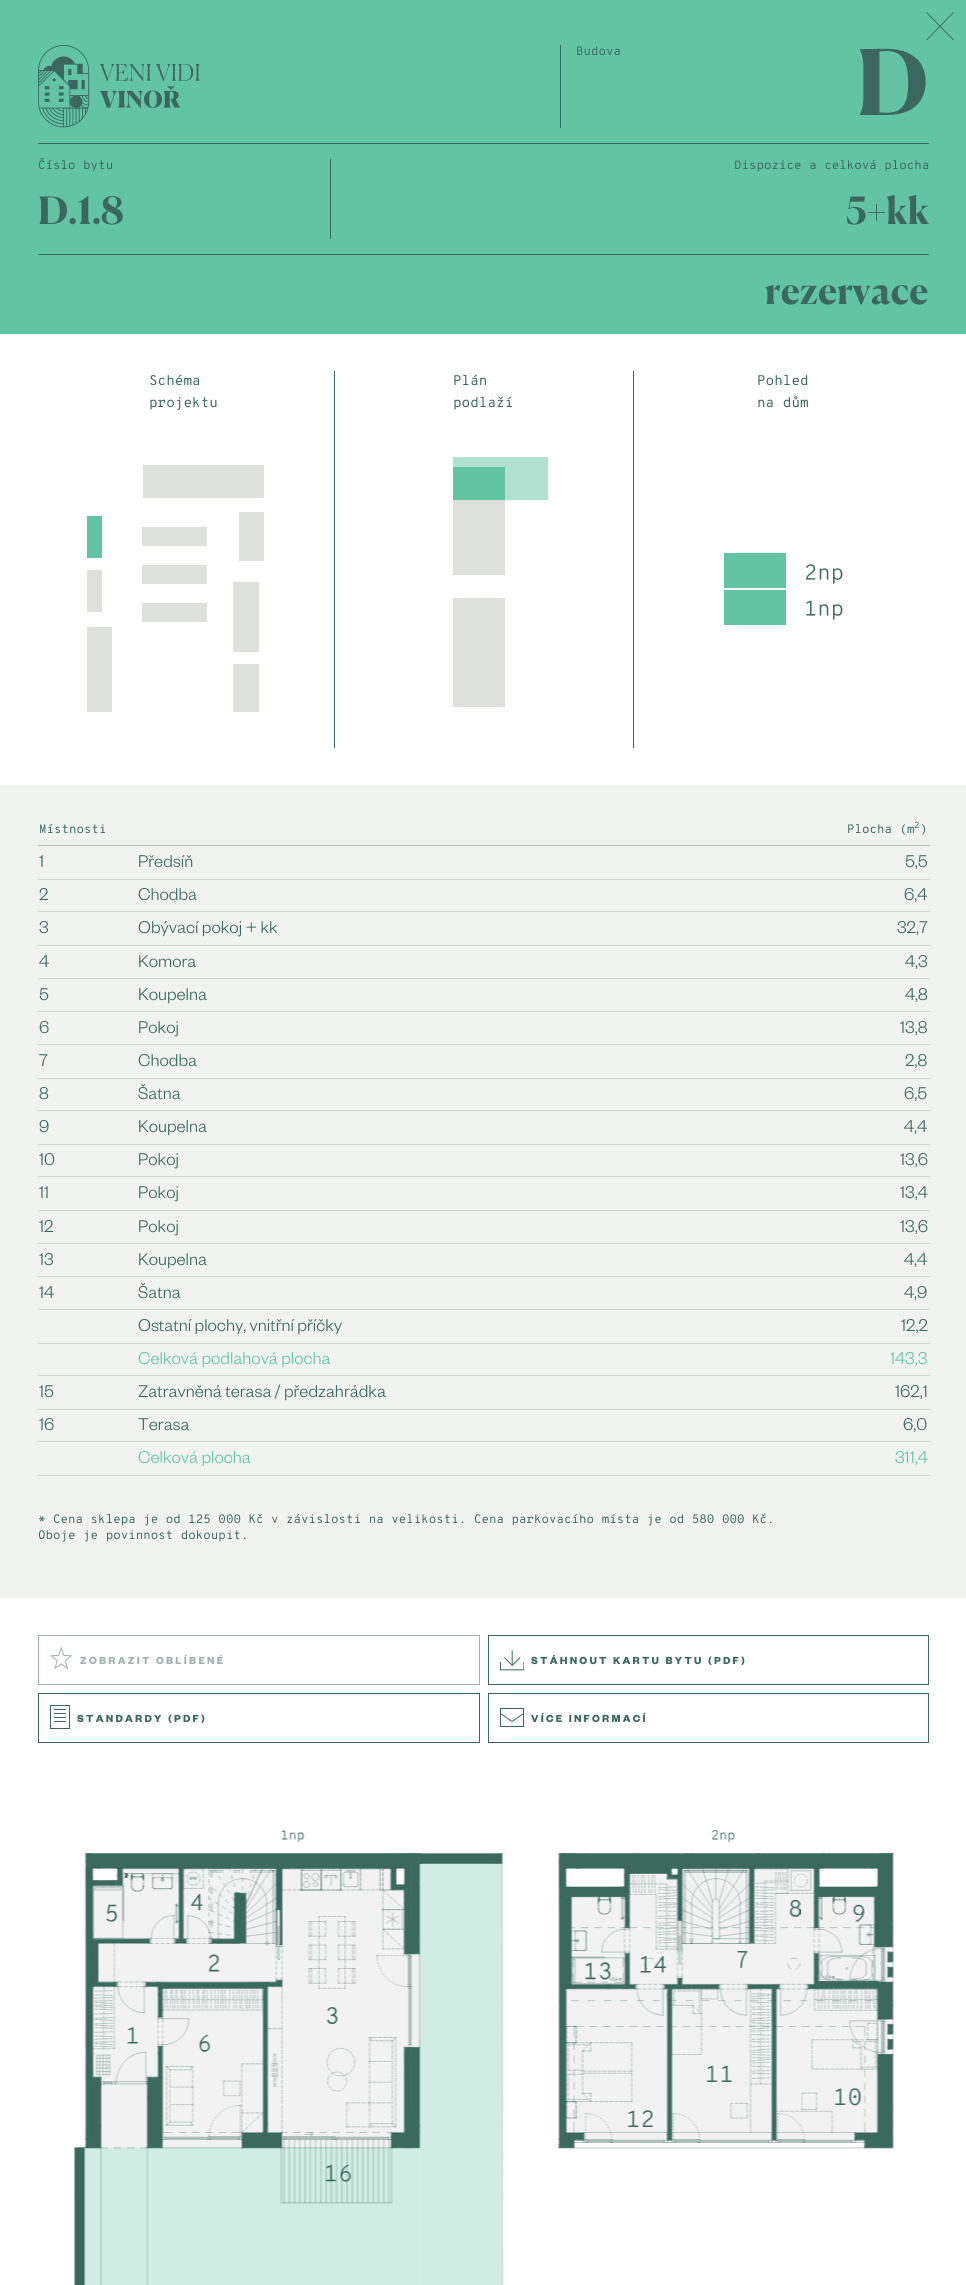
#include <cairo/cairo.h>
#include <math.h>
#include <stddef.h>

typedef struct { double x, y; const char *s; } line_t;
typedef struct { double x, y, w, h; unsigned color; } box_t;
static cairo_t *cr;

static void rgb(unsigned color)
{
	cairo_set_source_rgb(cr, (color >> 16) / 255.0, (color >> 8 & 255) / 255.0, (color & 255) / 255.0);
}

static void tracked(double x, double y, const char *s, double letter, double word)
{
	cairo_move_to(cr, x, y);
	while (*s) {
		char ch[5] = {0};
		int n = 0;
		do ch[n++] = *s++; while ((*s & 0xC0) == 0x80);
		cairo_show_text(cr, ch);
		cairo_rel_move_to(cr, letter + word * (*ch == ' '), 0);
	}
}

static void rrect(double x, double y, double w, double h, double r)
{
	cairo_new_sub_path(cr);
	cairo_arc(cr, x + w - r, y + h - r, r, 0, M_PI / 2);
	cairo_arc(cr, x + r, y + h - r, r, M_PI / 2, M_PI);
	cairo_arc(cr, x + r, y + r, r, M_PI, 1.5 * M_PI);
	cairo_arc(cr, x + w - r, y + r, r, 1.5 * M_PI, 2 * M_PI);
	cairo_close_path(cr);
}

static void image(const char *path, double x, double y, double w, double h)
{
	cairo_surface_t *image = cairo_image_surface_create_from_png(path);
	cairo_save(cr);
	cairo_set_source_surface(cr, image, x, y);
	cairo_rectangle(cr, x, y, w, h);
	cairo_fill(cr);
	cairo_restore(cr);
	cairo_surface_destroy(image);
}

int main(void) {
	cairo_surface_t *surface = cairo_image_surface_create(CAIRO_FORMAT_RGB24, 966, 2285);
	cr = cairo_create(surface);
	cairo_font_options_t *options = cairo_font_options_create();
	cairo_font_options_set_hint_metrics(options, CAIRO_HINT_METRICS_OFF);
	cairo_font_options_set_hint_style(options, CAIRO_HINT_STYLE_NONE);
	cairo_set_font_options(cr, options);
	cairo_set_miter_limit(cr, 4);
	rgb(0xffffff);
	cairo_paint(cr);
	rgb(0x62c4a3);
	cairo_rectangle(cr, 0, 0, 966, 334);
	cairo_fill(cr);
	cairo_new_path(cr);
	cairo_move_to(cr, 926.5, 12.5);
	cairo_line_to(cr, 953.5, 40);
	cairo_move_to(cr, 953.5, 12.5);
	cairo_line_to(cr, 926.5, 40);
	rgb(0x3b685e);
	cairo_set_line_width(cr, 0.9);
	cairo_stroke(cr);
	rgb(0xf1f3f1);
	cairo_rectangle(cr, 0, 785, 966, 813);
	cairo_fill(cr);
	image("img/1.png", 38, 45, 162, 83);
	rgb(0x3b685e);
	cairo_rectangle(cr, 560, 45, 1, 83);
	cairo_fill(cr);
	rrect(38, 143, 891, 1, 0.5);
	cairo_fill(cr);
	cairo_rectangle(cr, 330, 159, 1, 80);
	cairo_fill(cr);
	rrect(38, 254, 891, 1, 0.5);
	cairo_fill(cr);
	{
		static const box_t items[] = {
			{142, 527, 65, 19, 0xdde1dc},
			{142, 565, 65, 19, 0xdde1dc},
			{239, 512, 25, 49, 0xdde1dc},
			{233, 582, 26, 70, 0xdde1dc},
			{233, 664, 26, 48, 0xdde1dc},
			{87, 627, 25, 85, 0xdde1dc},
			{87, 570, 15, 42, 0xdde1dc},
			{87, 516, 15, 42, 0x62c4a3},
			{143, 465, 121, 33, 0xdde1dc},
			{142, 603, 65, 19, 0xdde1dc},
			{334, 371, 1, 377, 0x3b685e},
			{453, 598, 52, 109, 0xdde1dc},
			{453, 500, 52, 75, 0xdde1dc},
			{453, 467, 52, 33, 0x62c4a3},
			{505, 467, 43, 33, 0xb0e1d1},
			{453, 457, 95, 10, 0xb0e1d1},
			{633, 371, 1, 377, 0x3b685e},
		};
		for (size_t i = 0; i < sizeof items / sizeof *items; i++) {
			rgb(items[i].color);
			cairo_rectangle(cr, items[i].x, items[i].y, items[i].w, items[i].h);
			cairo_fill(cr);
		}
	}
	image("img/2.png", 724, 553, 119, 72);
	{
		static const box_t items[] = {
			{38, 845, 892, 1, 0xb0c1bc},
			{38, 879, 892, 1, 0xcdd7d4},
			{38, 911, 892, 1, 0xcdd7d4},
			{38, 945, 892, 1, 0xcdd7d4},
			{38, 978, 892, 1, 0xcdd7d4},
			{38, 1011, 892, 1, 0xcdd7d4},
			{38, 1044, 892, 1, 0xcdd7d4},
			{38, 1078, 892, 1, 0xcdd7d4},
			{38, 1110, 892, 1, 0xcdd7d4},
			{38, 1144, 892, 1, 0xcdd7d4},
			{38, 1176, 892, 1, 0xcdd7d4},
			{38, 1210, 892, 1, 0xcdd7d4},
			{38, 1243, 892, 1, 0xcdd7d4},
			{38, 1276, 892, 1, 0xcdd7d4},
			{38, 1309, 892, 1, 0xcdd7d4},
			{38, 1343, 892, 1, 0xcdd7d4},
			{38, 1375, 892, 1, 0xcdd7d4},
			{38, 1409, 892, 1, 0xcdd7d4},
			{38, 1441, 892, 1, 0xcdd7d4},
			{38, 1475, 892, 1, 0xcdd7d4},
		};
		for (size_t i = 0; i < sizeof items / sizeof *items; i++) {
			rgb(items[i].color);
			cairo_rectangle(cr, items[i].x, items[i].y, items[i].w, items[i].h);
			cairo_fill(cr);
		}
	}
	cairo_rectangle(cr, 38.5, 1635.5, 441, 49);
	rgb(0x9db4af);
	cairo_set_line_width(cr, 1);
	cairo_stroke(cr);
	image("img/3.png", 50, 1646, 23, 24);
	cairo_rectangle(cr, 488.5, 1635.5, 440, 49);
	rgb(0x3b685e);
	cairo_stroke(cr);
	image("img/4.png", 500, 1650, 24, 21);
	cairo_rectangle(cr, 38.5, 1693.5, 441, 49);
	cairo_stroke(cr);
	cairo_rectangle(cr, 50.5, 1705.5, 19, 23);
	cairo_stroke(cr);
	{
		static const box_t items[] = {
			{54, 1709, 12, 1, 0x3b685e},
			{54, 1713, 12, 1, 0x3b685e},
			{54, 1717, 12, 1, 0x3b685e},
			{54, 1721, 12, 1, 0x3b685e},
		};
		for (size_t i = 0; i < sizeof items / sizeof *items; i++) {
			rgb(items[i].color);
			cairo_rectangle(cr, items[i].x, items[i].y, items[i].w, items[i].h);
			cairo_fill(cr);
		}
	}
	cairo_rectangle(cr, 488.5, 1693.5, 440, 49);
	cairo_stroke(cr);
	cairo_rectangle(cr, 500.5, 1708.5, 23, 18);
	cairo_stroke(cr);
	cairo_new_path(cr);
	cairo_move_to(cr, 500.5, 1713.5);
	cairo_line_to(cr, 512, 1721.5);
	cairo_line_to(cr, 523.5, 1713.5);
	cairo_stroke(cr);
	image("img/5.png", 74, 1830, 820, 455);
	cairo_select_font_face(cr, "Overpass Mono", CAIRO_FONT_SLANT_NORMAL, CAIRO_FONT_WEIGHT_NORMAL);
	cairo_set_font_size(cr, 12.2);
	cairo_move_to(cr, 576, 55);
	cairo_show_text(cr, "Budova");
	cairo_select_font_face(cr, "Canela", CAIRO_FONT_SLANT_NORMAL, CAIRO_FONT_WEIGHT_BOLD);
	cairo_set_font_size(cr, 90);
	cairo_move_to(cr, 856, 115);
	cairo_show_text(cr, "D");
	cairo_select_font_face(cr, "Overpass Mono", CAIRO_FONT_SLANT_NORMAL, CAIRO_FONT_WEIGHT_NORMAL);
	cairo_set_font_size(cr, 12.2);
	cairo_move_to(cr, 38, 169);
	cairo_show_text(cr, "Číslo bytu");
	cairo_select_font_face(cr, "Canela", CAIRO_FONT_SLANT_NORMAL, CAIRO_FONT_WEIGHT_BOLD);
	cairo_set_font_size(cr, 37.5);
	cairo_move_to(cr, 38, 224);
	cairo_show_text(cr, "D.1.8");
	cairo_select_font_face(cr, "Overpass Mono", CAIRO_FONT_SLANT_NORMAL, CAIRO_FONT_WEIGHT_NORMAL);
	cairo_set_font_size(cr, 12.2);
	cairo_move_to(cr, 734, 169);
	cairo_show_text(cr, "Dispozice a celková plocha");
	cairo_select_font_face(cr, "Canela", CAIRO_FONT_SLANT_NORMAL, CAIRO_FONT_WEIGHT_BOLD);
	cairo_set_font_size(cr, 37.5);
	cairo_move_to(cr, 846, 224);
	cairo_show_text(cr, "5+kk");
	cairo_move_to(cr, 765, 304);
	cairo_show_text(cr, "rezervace");
	cairo_select_font_face(cr, "Overpass Mono", CAIRO_FONT_SLANT_NORMAL, CAIRO_FONT_WEIGHT_NORMAL);
	cairo_set_font_size(cr, 14);
	{
		static const line_t items[] = {
			{149, 385, "Schéma"},
			{149, 407, "projektu"},
			{453, 385, "Plán"},
			{453, 407, "podlaží"},
			{757, 385, "Pohled"},
			{757, 407, "na dům"},
		};
		for (size_t i = 0; i < sizeof items / sizeof *items; i++) {
			cairo_move_to(cr, items[i].x, items[i].y);
			cairo_show_text(cr, items[i].s);
		}
	}
	cairo_set_font_size(cr, 12.2);
	cairo_move_to(cr, 39, 833);
	cairo_show_text(cr, "Místnosti");
	cairo_move_to(cr, 847, 833);
	cairo_show_text(cr, "Plocha (m");
	cairo_set_font_size(cr, 9);
	cairo_move_to(cr, 914, 828);
	cairo_show_text(cr, "2");
	cairo_set_font_size(cr, 12.2);
	cairo_move_to(cr, 920, 833);
	cairo_show_text(cr, ")");
	cairo_select_font_face(cr, "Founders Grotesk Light", CAIRO_FONT_SLANT_NORMAL, CAIRO_FONT_WEIGHT_NORMAL);
	cairo_set_font_size(cr, 18.75);
	{
		static const line_t items[] = {
			{39, 867, "1"},
			{138, 867, "Předsíň"},
			{905, 867, "5,5"},
			{39, 900, "2"},
			{138, 900, "Chodba"},
			{904, 900, "6,4"},
			{39, 933, "3"},
			{138, 933, "Obývací pokoj + kk"},
			{897, 933, "32,7"},
			{39, 967, "4"},
			{138, 967, "Komora"},
			{905, 967, "4,3"},
			{39, 1000, "5"},
			{138, 1000, "Koupelna"},
			{905, 1000, "4,8"},
			{39, 1033, "6"},
			{138, 1033, "Pokoj"},
			{900, 1033, "13,8"},
			{39, 1066, "7"},
			{138, 1066, "Chodba"},
			{905, 1066, "2,8"},
			{39, 1099, "8"},
			{138, 1099, "Šatna"},
			{904, 1099, "6,5"},
			{39, 1132, "9"},
			{138, 1132, "Koupelna"},
			{904, 1132, "4,4"},
			{39, 1165, "10"},
			{138, 1165, "Pokoj"},
			{900, 1165, "13,6"},
			{39, 1198, "11"},
			{138, 1198, "Pokoj"},
			{900, 1198, "13,4"},
			{39, 1232, "12"},
			{138, 1232, "Pokoj"},
			{900, 1232, "13,6"},
			{39, 1265, "13"},
			{138, 1265, "Koupelna"},
			{904, 1265, "4,4"},
			{39, 1298, "14"},
			{138, 1298, "Šatna"},
			{904, 1298, "4,9"},
			{138, 1331, "Ostatní plochy, vnitřní příčky"},
			{901, 1331, "12,2"},
		};
		for (size_t i = 0; i < sizeof items / sizeof *items; i++) {
			cairo_move_to(cr, items[i].x, items[i].y);
			cairo_show_text(cr, items[i].s);
		}
	}
	rgb(0x62c4a3);
	cairo_move_to(cr, 138, 1364);
	cairo_show_text(cr, "Celková podlahová plocha");
	cairo_move_to(cr, 890, 1364);
	cairo_show_text(cr, "143,3");
	rgb(0x3b685e);
	{
		static const line_t items[] = {
			{39, 1397, "15"},
			{138, 1397, "Zatravněná terasa / předzahrádka"},
			{895, 1397, "162,1"},
			{39, 1430, "16"},
			{138, 1430, "Terasa"},
			{903, 1430, "6,0"},
		};
		for (size_t i = 0; i < sizeof items / sizeof *items; i++) {
			cairo_move_to(cr, items[i].x, items[i].y);
			cairo_show_text(cr, items[i].s);
		}
	}
	rgb(0x62c4a3);
	cairo_move_to(cr, 138, 1463);
	cairo_show_text(cr, "Celková plocha");
	cairo_move_to(cr, 895, 1463);
	cairo_show_text(cr, "311,4");
	cairo_select_font_face(cr, "Overpass Mono", CAIRO_FONT_SLANT_NORMAL, CAIRO_FONT_WEIGHT_NORMAL);
	cairo_set_font_size(cr, 12.2);
	rgb(0x3b685e);
	cairo_move_to(cr, 38, 1523);
	cairo_show_text(cr, "* Cena sklepa je od 125 000 Kč v závislosti na velikosti. Cena parkovacího místa je od 580 000 Kč.");
	cairo_move_to(cr, 38, 1539);
	cairo_show_text(cr, "Oboje je povinnost dokoupit.");
	cairo_select_font_face(cr, "Founders Grotesk", CAIRO_FONT_SLANT_NORMAL, CAIRO_FONT_WEIGHT_BOLD);
	cairo_set_font_size(cr, 11.25);
	rgb(0x9db4af);
	tracked(80, 1664, "ZOBRAZIT OBLÍBENÉ", 2.25, 0);
	rgb(0x3b685e);
	{
		static const line_t items[] = {
			{531, 1664, "STÁHNOUT KARTU BYTU (PDF)"},
			{77, 1722, "STANDARDY (PDF)"},
			{531, 1722, "VÍCE INFORMACÍ"},
		};
		for (size_t i = 0; i < sizeof items / sizeof *items; i++) {
			tracked(items[i].x, items[i].y, items[i].s, 2.25, 0);
		}
	}
	cairo_surface_write_to_png(surface, "page.png");
	cairo_font_options_destroy(options);
	cairo_destroy(cr);
	cairo_surface_destroy(surface);
	return 0;
}
